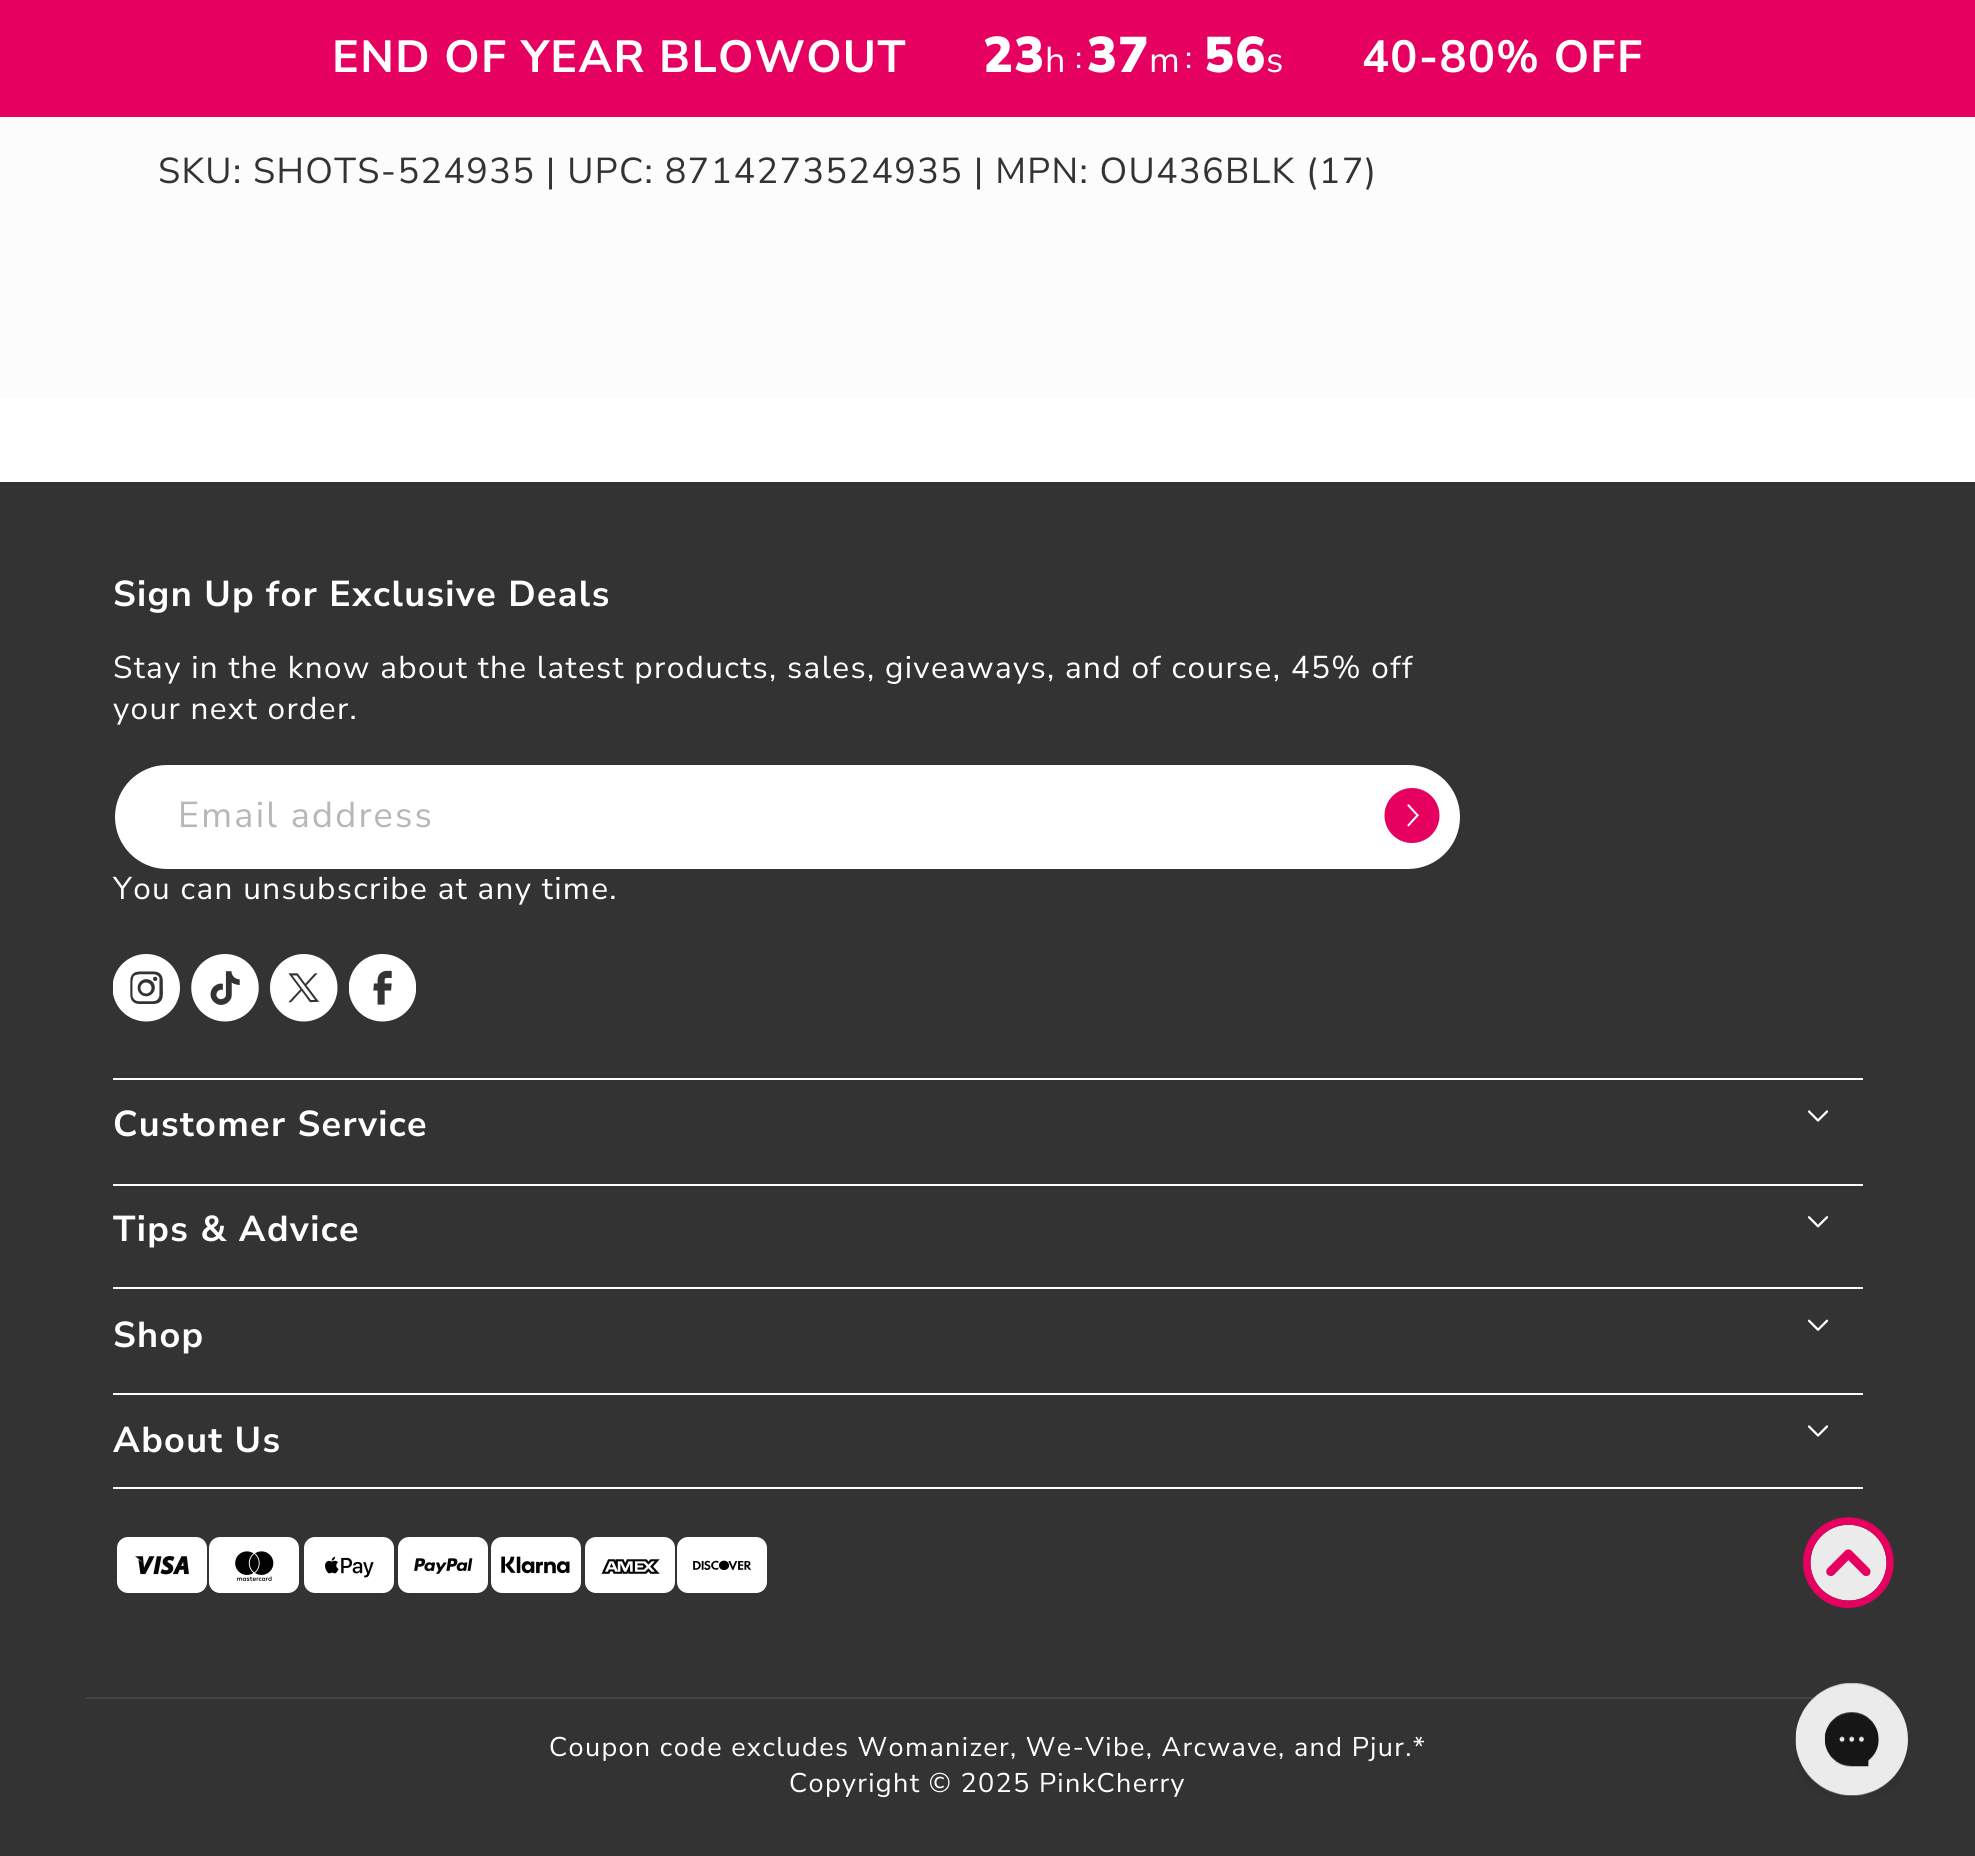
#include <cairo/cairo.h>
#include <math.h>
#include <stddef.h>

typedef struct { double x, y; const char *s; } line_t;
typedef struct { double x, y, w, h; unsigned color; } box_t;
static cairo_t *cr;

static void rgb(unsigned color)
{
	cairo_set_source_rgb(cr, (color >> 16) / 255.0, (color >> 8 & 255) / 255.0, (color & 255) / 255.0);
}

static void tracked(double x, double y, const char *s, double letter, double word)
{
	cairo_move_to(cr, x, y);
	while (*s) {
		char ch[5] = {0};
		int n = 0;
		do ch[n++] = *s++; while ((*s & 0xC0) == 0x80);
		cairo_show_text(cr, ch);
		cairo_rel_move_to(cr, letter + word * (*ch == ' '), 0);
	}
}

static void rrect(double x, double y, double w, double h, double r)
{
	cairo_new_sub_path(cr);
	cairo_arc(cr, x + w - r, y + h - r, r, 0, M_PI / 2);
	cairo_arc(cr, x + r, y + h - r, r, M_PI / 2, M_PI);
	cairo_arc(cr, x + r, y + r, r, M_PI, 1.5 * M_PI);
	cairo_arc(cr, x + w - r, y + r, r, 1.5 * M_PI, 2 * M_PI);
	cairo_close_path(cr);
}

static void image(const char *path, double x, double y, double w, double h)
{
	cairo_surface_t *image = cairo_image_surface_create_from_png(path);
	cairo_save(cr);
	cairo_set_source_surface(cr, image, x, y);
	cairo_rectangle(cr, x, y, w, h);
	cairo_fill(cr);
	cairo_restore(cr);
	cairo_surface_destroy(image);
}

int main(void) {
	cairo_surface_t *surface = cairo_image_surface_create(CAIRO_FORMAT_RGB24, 1975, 1856);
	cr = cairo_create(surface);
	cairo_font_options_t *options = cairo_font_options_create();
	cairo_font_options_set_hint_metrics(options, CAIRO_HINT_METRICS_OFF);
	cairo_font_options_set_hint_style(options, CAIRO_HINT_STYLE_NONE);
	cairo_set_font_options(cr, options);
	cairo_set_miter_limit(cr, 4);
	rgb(0xffffff);
	cairo_paint(cr);
	{
		static const box_t items[] = {
			{0, 0, 1975, 117, 0xe60060},
			{0, 117, 1975, 281, 0xfcfcfc},
			{0, 482, 1975, 1374, 0x333333},
		};
		for (size_t i = 0; i < sizeof items / sizeof *items; i++) {
			rgb(items[i].color);
			cairo_rectangle(cr, items[i].x, items[i].y, items[i].w, items[i].h);
			cairo_fill(cr);
		}
	}
	rgb(0xffffff);
	rrect(115, 765, 1345, 104, 52);
	cairo_fill(cr);
	image("img/1.png", 1384, 788, 56, 55);
	image("img/2.png", 113, 954, 67, 68);
	image("img/3.png", 191, 954, 68, 68);
	image("img/4.png", 270, 954, 68, 68);
	image("img/5.png", 349, 954, 67, 68);
	cairo_rectangle(cr, 113, 1078, 1750, 2);
	cairo_fill(cr);
	image("img/6.png", 1807, 1110, 22, 12);
	cairo_rectangle(cr, 113, 1184, 1750, 2);
	cairo_fill(cr);
	image("img/7.png", 1807, 1216, 22, 12);
	cairo_rectangle(cr, 113, 1287, 1750, 2);
	cairo_fill(cr);
	image("img/8.png", 1807, 1319, 22, 12);
	cairo_rectangle(cr, 113, 1393, 1750, 2);
	cairo_fill(cr);
	cairo_rectangle(cr, 113, 1487, 1750, 2);
	cairo_fill(cr);
	image("img/6.png", 1807, 1425, 22, 12);
	rrect(117, 1537, 90, 56, 11);
	cairo_fill(cr);
	image("img/9.png", 135, 1556, 54, 19);
	rrect(209, 1537, 90, 56, 11);
	cairo_fill(cr);
	image("img/10.png", 235, 1551, 39, 30);
	rrect(304, 1537, 90, 56, 11);
	cairo_fill(cr);
	image("img/11.png", 325, 1556, 49, 22);
	rrect(398, 1537, 90, 56, 11);
	cairo_fill(cr);
	image("img/12.png", 414, 1558, 59, 16);
	rrect(491, 1537, 90, 56, 11);
	cairo_fill(cr);
	image("img/13.png", 501, 1556, 69, 18);
	rrect(585, 1537, 90, 56, 11);
	cairo_fill(cr);
	image("img/14.png", 601, 1559, 59, 15);
	rrect(677, 1537, 90, 56, 11);
	cairo_fill(cr);
	image("img/15.png", 693, 1560, 59, 11);
	rgb(0x434343);
	cairo_rectangle(cr, 86, 1697, 1804, 2);
	cairo_fill(cr);
	image("img/16.png", 1803, 1517, 91, 91);
	image("img/17.png", 1795, 1682, 113, 115);
	cairo_select_font_face(cr, "Nunito Sans", CAIRO_FONT_SLANT_NORMAL, CAIRO_FONT_WEIGHT_BOLD);
	cairo_set_font_size(cr, 45);
	rgb(0xffffff);
	tracked(332, 72, "END OF YEAR BLOWOUT", 1.35, 0);
	cairo_select_font_face(cr, "Nunito Sans Black", CAIRO_FONT_SLANT_NORMAL, CAIRO_FONT_WEIGHT_NORMAL);
	cairo_set_font_size(cr, 50);
	tracked(983, 72, "23", 1.35, 0);
	cairo_select_font_face(cr, "Nunito Sans ExtraLight", CAIRO_FONT_SLANT_NORMAL, CAIRO_FONT_WEIGHT_NORMAL);
	cairo_set_font_size(cr, 36);
	tracked(1045, 72, "h", 1.35, 0);
	cairo_set_font_size(cr, 31.5);
	tracked(1075, 68, ":", 1.35, 0);
	cairo_select_font_face(cr, "Nunito Sans Black", CAIRO_FONT_SLANT_NORMAL, CAIRO_FONT_WEIGHT_NORMAL);
	cairo_set_font_size(cr, 50);
	tracked(1087, 72, "37", 1.35, 0);
	cairo_select_font_face(cr, "Nunito Sans ExtraLight", CAIRO_FONT_SLANT_NORMAL, CAIRO_FONT_WEIGHT_NORMAL);
	cairo_set_font_size(cr, 36);
	tracked(1149, 72, "m", 1.35, 0);
	cairo_set_font_size(cr, 31.5);
	tracked(1185, 68, ":", 1.35, 0);
	cairo_select_font_face(cr, "Nunito Sans Black", CAIRO_FONT_SLANT_NORMAL, CAIRO_FONT_WEIGHT_NORMAL);
	cairo_set_font_size(cr, 50);
	tracked(1204, 72, "56", 1.35, 0);
	cairo_select_font_face(cr, "Nunito Sans ExtraLight", CAIRO_FONT_SLANT_NORMAL, CAIRO_FONT_WEIGHT_NORMAL);
	cairo_set_font_size(cr, 36);
	tracked(1266, 72, "s", 1.35, 0);
	cairo_select_font_face(cr, "Nunito Sans", CAIRO_FONT_SLANT_NORMAL, CAIRO_FONT_WEIGHT_BOLD);
	cairo_set_font_size(cr, 45);
	tracked(1362, 72, "40-80% OFF", 1.35, 0);
	cairo_select_font_face(cr, "Nunito Sans ExtraLight", CAIRO_FONT_SLANT_NORMAL, CAIRO_FONT_WEIGHT_NORMAL);
	cairo_set_font_size(cr, 36);
	rgb(0x333333);
	tracked(158, 183, "SKU: SHOTS-524935 | UPC: 8714273524935 | MPN: OU436BLK (17)", 1.35, 0);
	cairo_select_font_face(cr, "Nunito Sans", CAIRO_FONT_SLANT_NORMAL, CAIRO_FONT_WEIGHT_BOLD);
	rgb(0xffffff);
	tracked(113, 606, "Sign Up for Exclusive Deals", 1.35, 0);
	cairo_select_font_face(cr, "Nunito Sans ExtraLight", CAIRO_FONT_SLANT_NORMAL, CAIRO_FONT_WEIGHT_NORMAL);
	cairo_set_font_size(cr, 31.5);
	tracked(113, 678, "Stay in the know about the latest products, sales, giveaways, and of course, 45% off", 1.35, 0);
	tracked(113, 719, "your next order.", 1.35, 0);
	cairo_set_font_size(cr, 36);
	rgb(0xb8b7b8);
	tracked(178, 827, "Email address", 2.25, 0);
	cairo_set_font_size(cr, 31.5);
	rgb(0xffffff);
	tracked(113, 899, "You can unsubscribe at any time.", 1.35, 0);
	cairo_select_font_face(cr, "Nunito Sans", CAIRO_FONT_SLANT_NORMAL, CAIRO_FONT_WEIGHT_BOLD);
	cairo_set_font_size(cr, 36);
	{
		static const line_t items[] = {
			{113, 1136, "Customer Service"},
			{113, 1241, "Tips & Advice"},
			{113, 1347, "Shop"},
			{113, 1452, "About Us"},
		};
		for (size_t i = 0; i < sizeof items / sizeof *items; i++) {
			tracked(items[i].x, items[i].y, items[i].s, 1.35, 0);
		}
	}
	cairo_select_font_face(cr, "Nunito Sans ExtraLight", CAIRO_FONT_SLANT_NORMAL, CAIRO_FONT_WEIGHT_NORMAL);
	cairo_set_font_size(cr, 27);
	tracked(549, 1756, "Coupon code excludes Womanizer, We-Vibe, Arcwave, and Pjur.*", 1.35, 0);
	tracked(789, 1792, "Copyright © 2025 PinkCherry", 1.35, 0);
	cairo_surface_write_to_png(surface, "page.png");
	cairo_font_options_destroy(options);
	cairo_destroy(cr);
	cairo_surface_destroy(surface);
	return 0;
}
